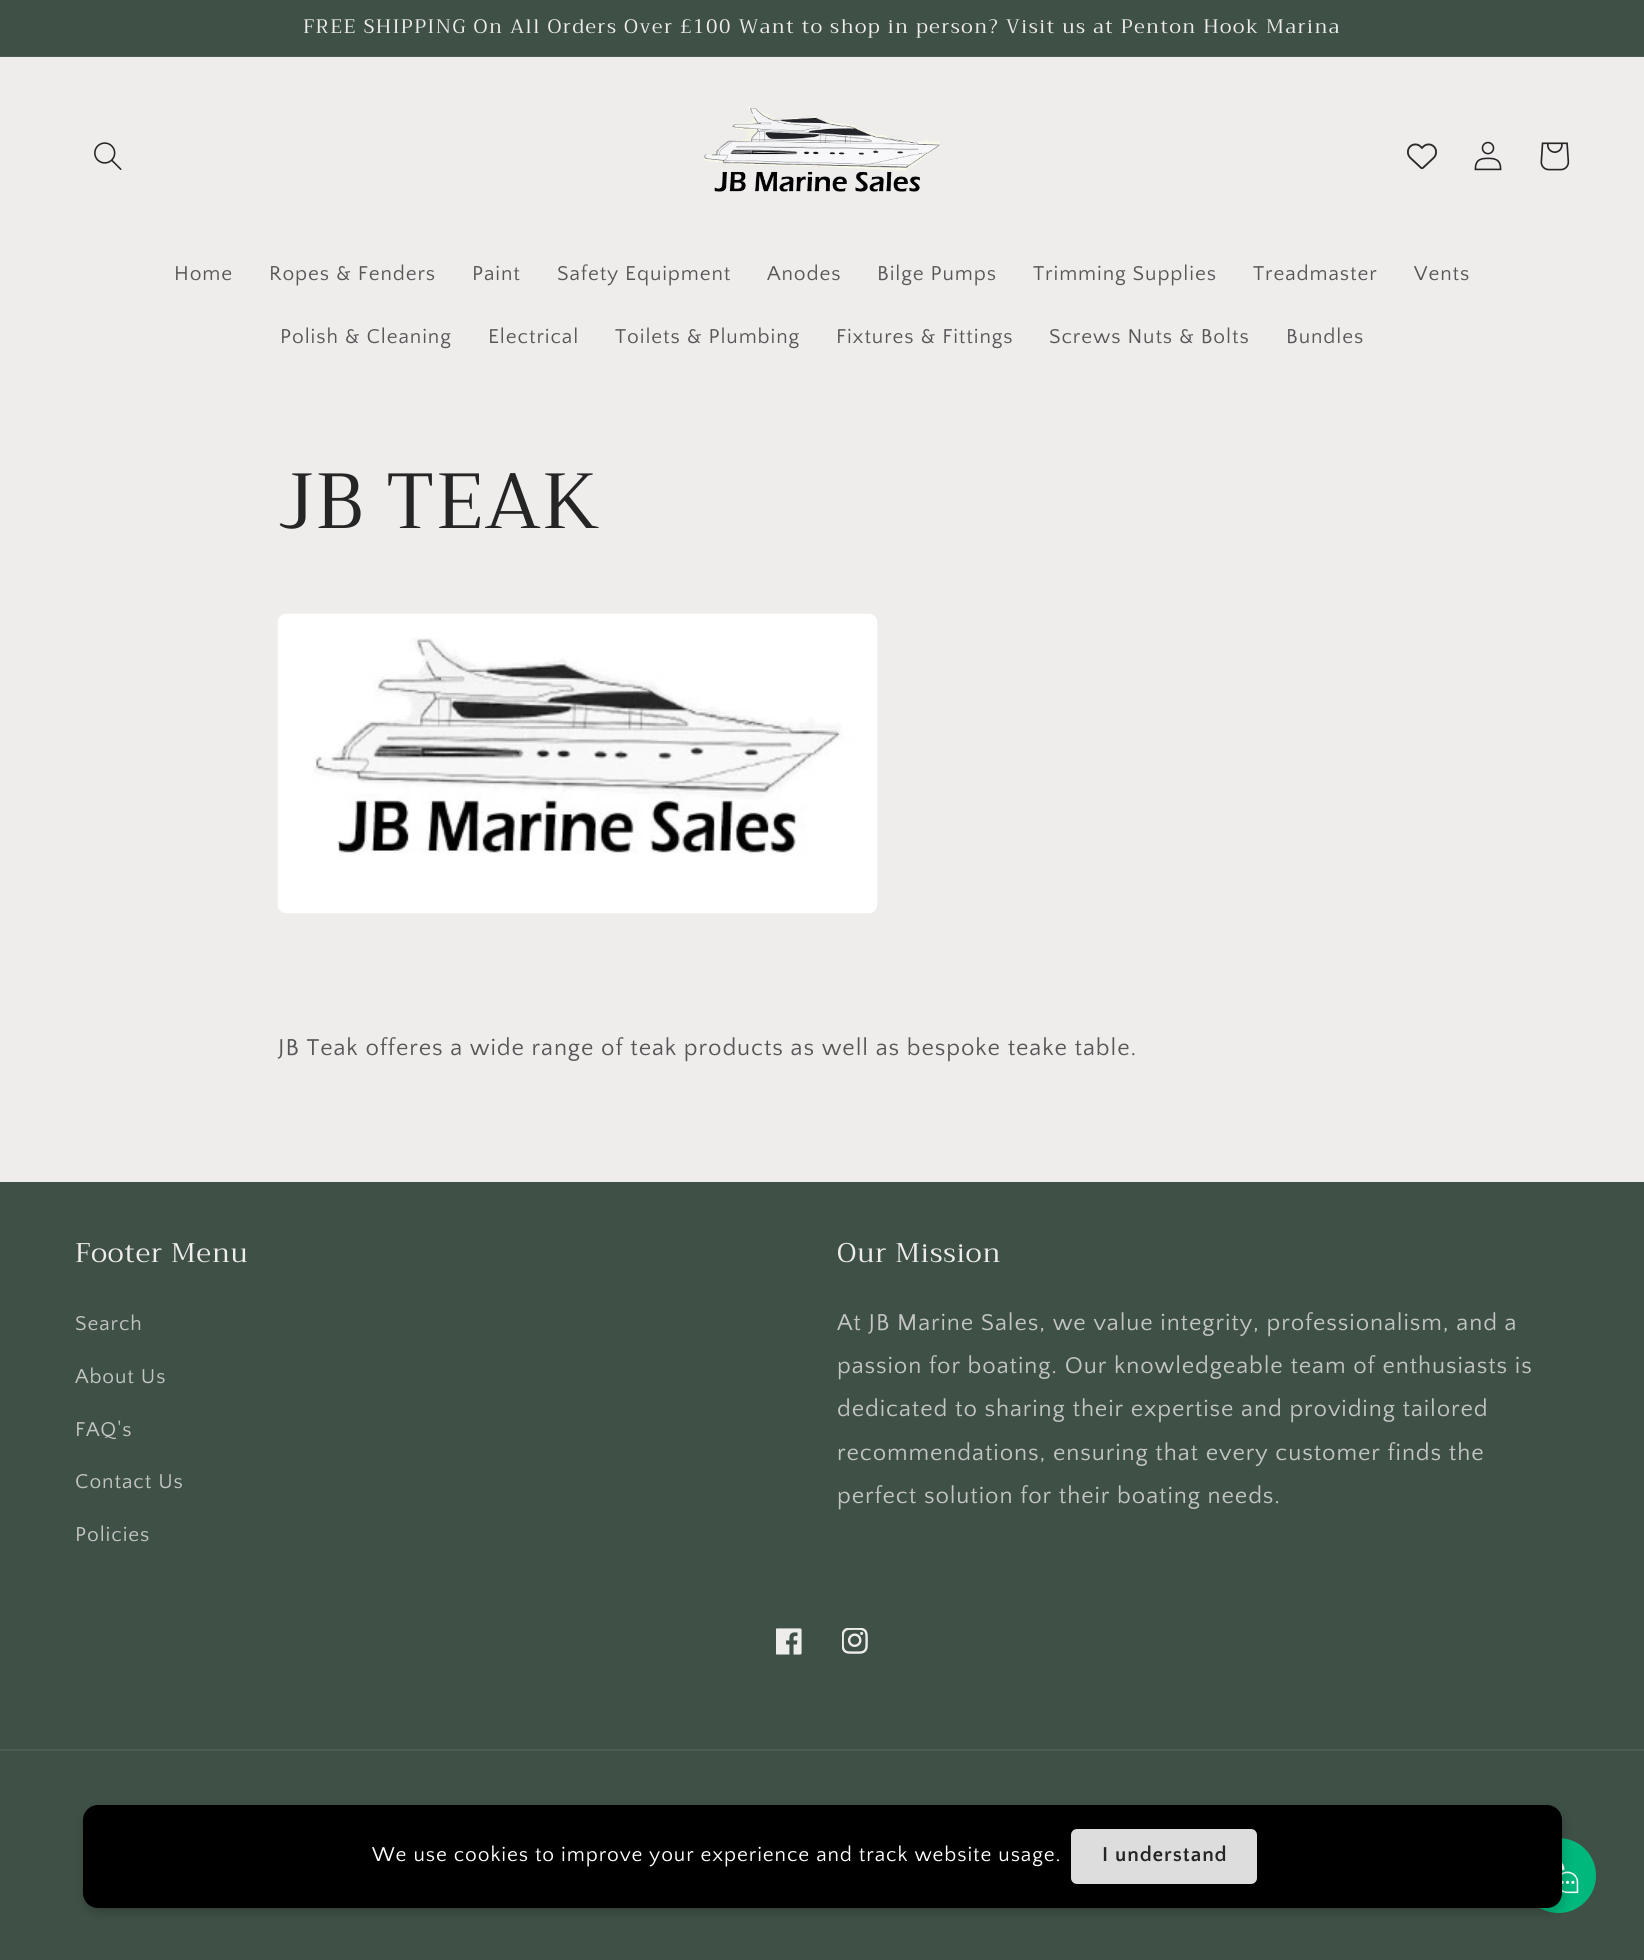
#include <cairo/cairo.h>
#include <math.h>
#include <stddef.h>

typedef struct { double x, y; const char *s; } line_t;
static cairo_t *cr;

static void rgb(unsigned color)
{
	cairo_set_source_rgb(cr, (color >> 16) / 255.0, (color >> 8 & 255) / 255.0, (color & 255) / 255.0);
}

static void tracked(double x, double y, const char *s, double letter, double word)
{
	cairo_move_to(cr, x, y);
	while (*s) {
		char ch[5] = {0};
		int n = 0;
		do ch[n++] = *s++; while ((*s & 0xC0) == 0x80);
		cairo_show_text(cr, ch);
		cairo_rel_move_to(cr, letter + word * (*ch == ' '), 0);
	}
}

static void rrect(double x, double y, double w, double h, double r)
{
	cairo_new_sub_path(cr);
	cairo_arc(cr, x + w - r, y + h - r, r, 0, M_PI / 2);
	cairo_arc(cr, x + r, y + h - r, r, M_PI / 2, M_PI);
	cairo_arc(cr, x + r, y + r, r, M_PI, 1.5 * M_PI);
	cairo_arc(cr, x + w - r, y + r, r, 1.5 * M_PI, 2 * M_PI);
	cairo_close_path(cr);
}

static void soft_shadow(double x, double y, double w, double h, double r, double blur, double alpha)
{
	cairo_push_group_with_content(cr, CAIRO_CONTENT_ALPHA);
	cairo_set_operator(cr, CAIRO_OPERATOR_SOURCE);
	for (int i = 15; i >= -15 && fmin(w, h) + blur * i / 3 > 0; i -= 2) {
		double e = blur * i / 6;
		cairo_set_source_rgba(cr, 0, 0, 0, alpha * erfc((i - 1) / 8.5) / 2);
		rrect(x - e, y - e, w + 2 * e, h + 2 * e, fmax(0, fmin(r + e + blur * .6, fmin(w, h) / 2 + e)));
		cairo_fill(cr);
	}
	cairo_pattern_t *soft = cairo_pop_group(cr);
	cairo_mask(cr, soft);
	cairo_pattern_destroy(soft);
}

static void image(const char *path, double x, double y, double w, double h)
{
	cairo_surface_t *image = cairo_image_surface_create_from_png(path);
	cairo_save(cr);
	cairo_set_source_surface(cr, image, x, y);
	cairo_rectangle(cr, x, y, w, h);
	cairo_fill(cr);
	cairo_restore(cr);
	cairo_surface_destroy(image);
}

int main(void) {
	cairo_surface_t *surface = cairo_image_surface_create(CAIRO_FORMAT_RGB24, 1644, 1960);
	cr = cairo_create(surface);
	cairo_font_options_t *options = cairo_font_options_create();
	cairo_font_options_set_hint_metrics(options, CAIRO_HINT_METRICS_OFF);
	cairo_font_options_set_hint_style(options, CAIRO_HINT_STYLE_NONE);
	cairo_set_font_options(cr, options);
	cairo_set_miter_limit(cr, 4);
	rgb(0xefecec);
	cairo_paint(cr);
	rgb(0x3f5147);
	cairo_rectangle(cr, 0, 0, 1644, 56);
	cairo_fill(cr);
	rgb(0x4d5d54);
	cairo_rectangle(cr, 0, 56, 1644, 1);
	cairo_fill(cr);
	image("img/1.png", 94, 142, 28, 28);
	image("img/2.png", 704, 106, 237, 86);
	image("img/3.png", 1407, 143, 30, 27);
	image("img/4.png", 1474, 141, 28, 30);
	image("img/5.png", 1540, 142, 30, 29);
	image("img/6.png", 277, 613, 601, 301);
	rgb(0x3f5147);
	cairo_rectangle(cr, 0, 1182, 1644, 778);
	cairo_fill(cr);
	image("img/7.png", 776, 1628, 26, 27);
	image("img/8.png", 842, 1628, 26, 26);
	rgb(0x4d5d54);
	cairo_rectangle(cr, 0, 1749, 1644, 2);
	cairo_fill(cr);
	rgb(0x00b87c);
	cairo_arc(cr, 1558.5, 1875.5, 37.5, 0, 2 * M_PI);
	cairo_fill(cr);
	image("img/9.png", 1562, 1862, 17, 32);
	rgb(0x000000);
	soft_shadow(84, 1809, 1479, 104, 15, 6, 0.2);
	rgb(0x000000);
	rrect(83, 1805, 1479, 103, 15);
	cairo_fill(cr);
	rgb(0xdddddd);
	rrect(1071, 1829, 186, 55, 6);
	cairo_fill(cr);
	cairo_select_font_face(cr, "Trirong", CAIRO_FONT_SLANT_NORMAL, CAIRO_FONT_WEIGHT_NORMAL);
	cairo_set_font_size(cr, 19.5);
	rgb(0xefecec);
	tracked(303, 33, "FREE SHIPPING On All Orders Over £100 Want to shop in person? Visit us at Penton Hook Marina", 1.5, 0);
	cairo_select_font_face(cr, "Quattrocento Sans", CAIRO_FONT_SLANT_NORMAL, CAIRO_FONT_WEIGHT_NORMAL);
	cairo_set_font_size(cr, 21);
	rgb(0x585757);
	{
		static const line_t items[] = {
			{174, 280, "Home"},
			{269, 280, "Ropes & Fenders"},
			{472, 280, "Paint"},
			{557, 280, "Safety Equipment"},
			{767, 280, "Anodes"},
			{877, 280, "Bilge Pumps"},
			{1033, 280, "Trimming Supplies"},
			{1253, 280, "Treadmaster"},
			{1414, 280, "Vents"},
			{280, 343, "Polish & Cleaning"},
			{488, 343, "Electrical"},
			{615, 343, "Toilets & Plumbing"},
			{836, 343, "Fixtures & Fittings"},
			{1049, 343, "Screws Nuts & Bolts"},
			{1286, 343, "Bundles"},
		};
		for (size_t i = 0; i < sizeof items / sizeof *items; i++) {
			tracked(items[i].x, items[i].y, items[i].s, 0.9, 0);
		}
	}
	cairo_select_font_face(cr, "Trirong", CAIRO_FONT_SLANT_NORMAL, CAIRO_FONT_WEIGHT_NORMAL);
	cairo_set_font_size(cr, 78);
	rgb(0x252525);
	tracked(278, 528, "JB TEAK", 0.9, 0);
	cairo_select_font_face(cr, "Quattrocento Sans", CAIRO_FONT_SLANT_NORMAL, CAIRO_FONT_WEIGHT_NORMAL);
	cairo_set_font_size(cr, 24);
	rgb(0x585757);
	tracked(278, 1055, "JB Teak offeres a wide range of teak products as well as bespoke teake table.", 0.9, 0);
	cairo_select_font_face(cr, "Trirong", CAIRO_FONT_SLANT_NORMAL, CAIRO_FONT_WEIGHT_NORMAL);
	cairo_set_font_size(cr, 27);
	rgb(0xefecec);
	tracked(75, 1262, "Footer Menu", 0.9, 0);
	cairo_select_font_face(cr, "Quattrocento Sans", CAIRO_FONT_SLANT_NORMAL, CAIRO_FONT_WEIGHT_NORMAL);
	cairo_set_font_size(cr, 21);
	rgb(0xc3c5c3);
	{
		static const line_t items[] = {
			{75, 1330, "Search"},
			{75, 1383, "About Us"},
			{75, 1436, "FAQ's"},
			{75, 1488, "Contact Us"},
			{75, 1541, "Policies"},
		};
		for (size_t i = 0; i < sizeof items / sizeof *items; i++) {
			tracked(items[i].x, items[i].y, items[i].s, 0.9, 0);
		}
	}
	cairo_select_font_face(cr, "Trirong", CAIRO_FONT_SLANT_NORMAL, CAIRO_FONT_WEIGHT_NORMAL);
	cairo_set_font_size(cr, 27);
	rgb(0xefecec);
	tracked(837, 1262, "Our Mission", 0.9, 0);
	cairo_select_font_face(cr, "Quattrocento Sans", CAIRO_FONT_SLANT_NORMAL, CAIRO_FONT_WEIGHT_NORMAL);
	cairo_set_font_size(cr, 24);
	rgb(0xc3c5c3);
	{
		static const line_t items[] = {
			{837, 1330, "At JB Marine Sales, we value integrity, professionalism, and a"},
			{837, 1373, "passion for boating. Our knowledgeable team of enthusiasts is"},
			{837, 1416, "dedicated to sharing their expertise and providing tailored"},
			{837, 1460, "recommendations, ensuring that every customer finds the"},
			{837, 1503, "perfect solution for their boating needs."},
		};
		for (size_t i = 0; i < sizeof items / sizeof *items; i++) {
			tracked(items[i].x, items[i].y, items[i].s, 0.9, 0);
		}
	}
	cairo_set_font_size(cr, 21);
	rgb(0xffffff);
	tracked(372, 1861, "We use cookies to improve your experience and track website usage.", 0.9, 0);
	cairo_select_font_face(cr, "Quattrocento Sans", CAIRO_FONT_SLANT_NORMAL, CAIRO_FONT_WEIGHT_BOLD);
	rgb(0x252525);
	tracked(1102, 1861, "I understand", 0.9, 0);
	cairo_surface_write_to_png(surface, "page.png");
	cairo_font_options_destroy(options);
	cairo_destroy(cr);
	cairo_surface_destroy(surface);
	return 0;
}
